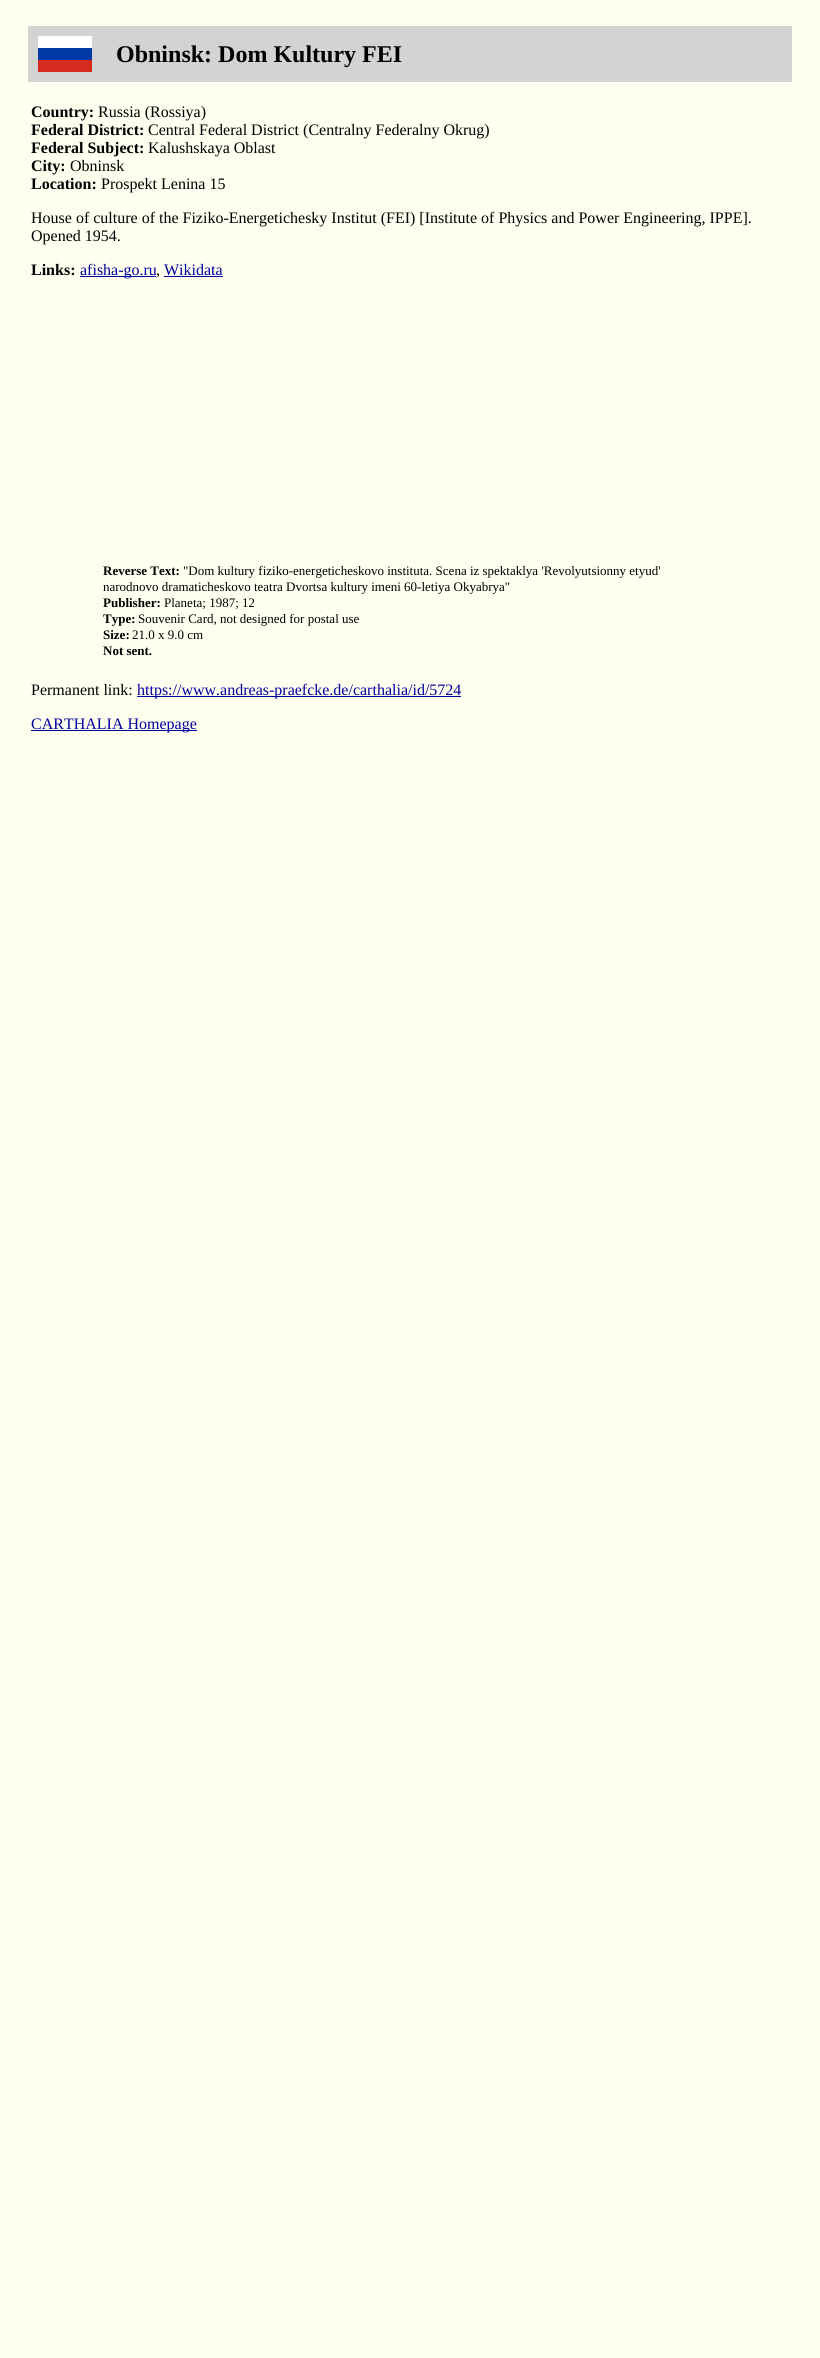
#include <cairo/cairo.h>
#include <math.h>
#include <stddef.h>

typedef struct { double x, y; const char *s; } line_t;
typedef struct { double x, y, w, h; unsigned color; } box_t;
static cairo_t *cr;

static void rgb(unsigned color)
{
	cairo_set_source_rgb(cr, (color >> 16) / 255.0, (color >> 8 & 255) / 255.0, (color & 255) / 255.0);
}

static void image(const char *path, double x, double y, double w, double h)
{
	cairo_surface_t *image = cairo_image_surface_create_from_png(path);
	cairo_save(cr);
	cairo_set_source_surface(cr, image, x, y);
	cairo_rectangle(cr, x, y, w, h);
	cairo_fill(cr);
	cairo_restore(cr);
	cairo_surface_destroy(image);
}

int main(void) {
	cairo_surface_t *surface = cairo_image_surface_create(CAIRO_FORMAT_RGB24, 820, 2358);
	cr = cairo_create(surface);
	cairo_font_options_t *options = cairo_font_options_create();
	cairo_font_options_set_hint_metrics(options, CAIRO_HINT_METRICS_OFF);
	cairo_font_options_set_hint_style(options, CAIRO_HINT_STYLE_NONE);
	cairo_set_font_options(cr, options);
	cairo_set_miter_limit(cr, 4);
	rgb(0xfffff0);
	cairo_paint(cr);
	rgb(0xd3d3d3);
	cairo_rectangle(cr, 28, 26, 764, 56);
	cairo_fill(cr);
	image("img/1.png", 38, 36, 54, 36);
	{
		static const box_t items[] = {
			{80, 276, 76, 1, 0x0000a0},
			{164, 276, 59, 1, 0x0000a0},
			{137, 696, 324, 1, 0x0000a0},
			{31, 730, 166, 1, 0x0000a0},
		};
		for (size_t i = 0; i < sizeof items / sizeof *items; i++) {
			rgb(items[i].color);
			cairo_rectangle(cr, items[i].x, items[i].y, items[i].w, items[i].h);
			cairo_fill(cr);
		}
	}
	cairo_select_font_face(cr, "Liberation Serif", CAIRO_FONT_SLANT_NORMAL, CAIRO_FONT_WEIGHT_BOLD);
	cairo_set_font_size(cr, 24);
	rgb(0x000000);
	cairo_move_to(cr, 116, 62);
	cairo_show_text(cr, "Obninsk: Dom Kultury FEI");
	cairo_set_font_size(cr, 16);
	cairo_move_to(cr, 31, 117);
	cairo_show_text(cr, "Country:");
	cairo_select_font_face(cr, "Liberation Serif", CAIRO_FONT_SLANT_NORMAL, CAIRO_FONT_WEIGHT_NORMAL);
	cairo_move_to(cr, 98, 117);
	cairo_show_text(cr, "Russia (Rossiya)");
	cairo_select_font_face(cr, "Liberation Serif", CAIRO_FONT_SLANT_NORMAL, CAIRO_FONT_WEIGHT_BOLD);
	cairo_move_to(cr, 31, 135);
	cairo_show_text(cr, "Federal District:");
	cairo_select_font_face(cr, "Liberation Serif", CAIRO_FONT_SLANT_NORMAL, CAIRO_FONT_WEIGHT_NORMAL);
	cairo_move_to(cr, 148, 135);
	cairo_show_text(cr, "Central Federal District (Centralny Federalny Okrug)");
	cairo_select_font_face(cr, "Liberation Serif", CAIRO_FONT_SLANT_NORMAL, CAIRO_FONT_WEIGHT_BOLD);
	cairo_move_to(cr, 31, 153);
	cairo_show_text(cr, "Federal Subject:");
	cairo_select_font_face(cr, "Liberation Serif", CAIRO_FONT_SLANT_NORMAL, CAIRO_FONT_WEIGHT_NORMAL);
	cairo_move_to(cr, 148, 153);
	cairo_show_text(cr, "Kalushskaya Oblast");
	cairo_select_font_face(cr, "Liberation Serif", CAIRO_FONT_SLANT_NORMAL, CAIRO_FONT_WEIGHT_BOLD);
	cairo_move_to(cr, 31, 171);
	cairo_show_text(cr, "City:");
	cairo_select_font_face(cr, "Liberation Serif", CAIRO_FONT_SLANT_NORMAL, CAIRO_FONT_WEIGHT_NORMAL);
	cairo_move_to(cr, 70, 171);
	cairo_show_text(cr, "Obninsk");
	cairo_select_font_face(cr, "Liberation Serif", CAIRO_FONT_SLANT_NORMAL, CAIRO_FONT_WEIGHT_BOLD);
	cairo_move_to(cr, 31, 189);
	cairo_show_text(cr, "Location:");
	cairo_select_font_face(cr, "Liberation Serif", CAIRO_FONT_SLANT_NORMAL, CAIRO_FONT_WEIGHT_NORMAL);
	{
		static const line_t items[] = {
			{101, 189, "Prospekt Lenina 15"},
			{31, 223, "House of culture of the Fiziko-Energetichesky Institut (FEI) [Institute of Physics and Power Engineering, IPPE]."},
			{31, 241, "Opened 1954."},
		};
		for (size_t i = 0; i < sizeof items / sizeof *items; i++) {
			cairo_move_to(cr, items[i].x, items[i].y);
			cairo_show_text(cr, items[i].s);
		}
	}
	cairo_select_font_face(cr, "Liberation Serif", CAIRO_FONT_SLANT_NORMAL, CAIRO_FONT_WEIGHT_BOLD);
	cairo_move_to(cr, 31, 275);
	cairo_show_text(cr, "Links:");
	cairo_select_font_face(cr, "Liberation Serif", CAIRO_FONT_SLANT_NORMAL, CAIRO_FONT_WEIGHT_NORMAL);
	rgb(0x0000a0);
	cairo_move_to(cr, 80, 275);
	cairo_show_text(cr, "afisha-go.ru");
	rgb(0x000000);
	cairo_move_to(cr, 156, 275);
	cairo_show_text(cr, ",");
	rgb(0x0000a0);
	cairo_move_to(cr, 164, 275);
	cairo_show_text(cr, "Wikidata");
	cairo_select_font_face(cr, "Liberation Serif", CAIRO_FONT_SLANT_NORMAL, CAIRO_FONT_WEIGHT_BOLD);
	cairo_set_font_size(cr, 13);
	rgb(0x000000);
	cairo_move_to(cr, 103, 575);
	cairo_show_text(cr, "Reverse Text:");
	cairo_select_font_face(cr, "Liberation Serif", CAIRO_FONT_SLANT_NORMAL, CAIRO_FONT_WEIGHT_NORMAL);
	cairo_move_to(cr, 183, 575);
	cairo_show_text(cr, "\"Dom kultury fiziko-energeticheskovo instituta. Scena iz spektaklya 'Revolyutsionny etyud'");
	cairo_move_to(cr, 103, 591);
	cairo_show_text(cr, "narodnovo dramaticheskovo teatra Dvortsa kultury imeni 60-letiya Okyabrya\"");
	cairo_select_font_face(cr, "Liberation Serif", CAIRO_FONT_SLANT_NORMAL, CAIRO_FONT_WEIGHT_BOLD);
	cairo_move_to(cr, 103, 607);
	cairo_show_text(cr, "Publisher:");
	cairo_select_font_face(cr, "Liberation Serif", CAIRO_FONT_SLANT_NORMAL, CAIRO_FONT_WEIGHT_NORMAL);
	cairo_move_to(cr, 164, 607);
	cairo_show_text(cr, "Planeta; 1987; 12");
	cairo_select_font_face(cr, "Liberation Serif", CAIRO_FONT_SLANT_NORMAL, CAIRO_FONT_WEIGHT_BOLD);
	cairo_move_to(cr, 103, 623);
	cairo_show_text(cr, "Type:");
	cairo_select_font_face(cr, "Liberation Serif", CAIRO_FONT_SLANT_NORMAL, CAIRO_FONT_WEIGHT_NORMAL);
	cairo_move_to(cr, 138, 623);
	cairo_show_text(cr, "Souvenir Card, not designed for postal use");
	cairo_select_font_face(cr, "Liberation Serif", CAIRO_FONT_SLANT_NORMAL, CAIRO_FONT_WEIGHT_BOLD);
	cairo_move_to(cr, 103, 639);
	cairo_show_text(cr, "Size:");
	cairo_select_font_face(cr, "Liberation Serif", CAIRO_FONT_SLANT_NORMAL, CAIRO_FONT_WEIGHT_NORMAL);
	cairo_move_to(cr, 132, 639);
	cairo_show_text(cr, "21.0 x 9.0 cm");
	cairo_select_font_face(cr, "Liberation Serif", CAIRO_FONT_SLANT_NORMAL, CAIRO_FONT_WEIGHT_BOLD);
	cairo_move_to(cr, 103, 655);
	cairo_show_text(cr, "Not sent.");
	cairo_select_font_face(cr, "Liberation Serif", CAIRO_FONT_SLANT_NORMAL, CAIRO_FONT_WEIGHT_NORMAL);
	cairo_set_font_size(cr, 16);
	cairo_move_to(cr, 31, 695);
	cairo_show_text(cr, "Permanent link:");
	rgb(0x0000a0);
	cairo_move_to(cr, 137, 695);
	cairo_show_text(cr, "https://www.andreas-praefcke.de/carthalia/id/5724");
	cairo_move_to(cr, 31, 729);
	cairo_show_text(cr, "CARTHALIA Homepage");
	cairo_surface_write_to_png(surface, "page.png");
	cairo_font_options_destroy(options);
	cairo_destroy(cr);
	cairo_surface_destroy(surface);
	return 0;
}
